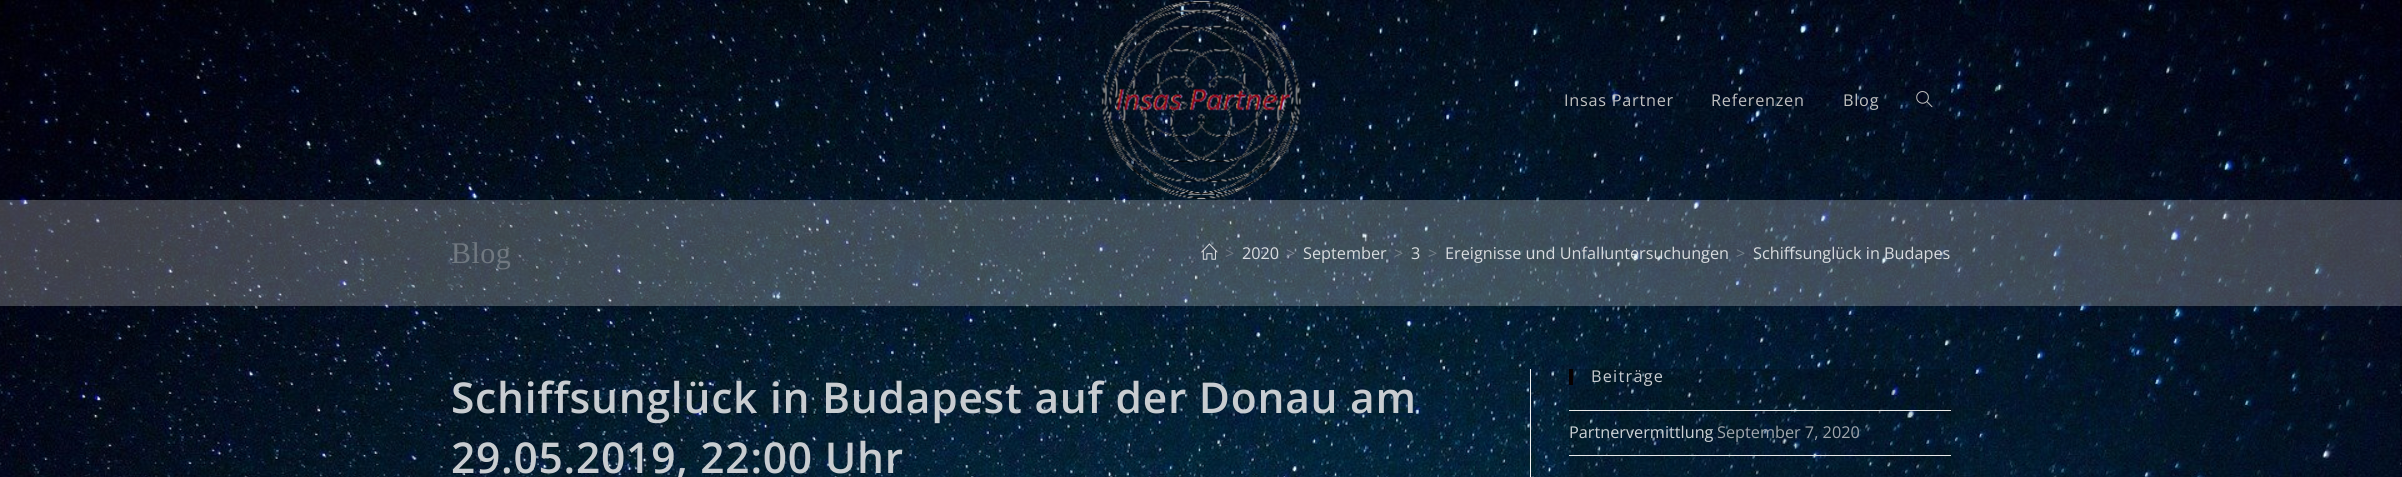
#include <cairo/cairo.h>
#include <math.h>
#include <stddef.h>

typedef struct { double x, y; const char *s; } line_t;
static cairo_t *cr;

static void rgb(unsigned color)
{
	cairo_set_source_rgb(cr, (color >> 16) / 255.0, (color >> 8 & 255) / 255.0, (color & 255) / 255.0);
}

static void tracked(double x, double y, const char *s, double letter, double word)
{
	cairo_move_to(cr, x, y);
	while (*s) {
		char ch[5] = {0};
		int n = 0;
		do ch[n++] = *s++; while ((*s & 0xC0) == 0x80);
		cairo_show_text(cr, ch);
		cairo_rel_move_to(cr, letter + word * (*ch == ' '), 0);
	}
}

static void image(const char *path, double x, double y, double w, double h)
{
	cairo_surface_t *image = cairo_image_surface_create_from_png(path);
	cairo_save(cr);
	cairo_set_source_surface(cr, image, x, y);
	cairo_rectangle(cr, x, y, w, h);
	cairo_fill(cr);
	cairo_restore(cr);
	cairo_surface_destroy(image);
}

int main(void) {
	cairo_surface_t *surface = cairo_image_surface_create(CAIRO_FORMAT_RGB24, 2402, 477);
	cr = cairo_create(surface);
	cairo_font_options_t *options = cairo_font_options_create();
	cairo_font_options_set_hint_metrics(options, CAIRO_HINT_METRICS_OFF);
	cairo_font_options_set_hint_style(options, CAIRO_HINT_STYLE_NONE);
	cairo_set_font_options(cr, options);
	cairo_set_miter_limit(cr, 4);
	rgb(0xffffff);
	cairo_paint(cr);
	image("img/1.png", 0, 0, 2402, 477);
	image("img/2.png", 1101, 0, 200, 200);
	image("img/3.png", 1916, 91, 17, 17);
	cairo_set_source_rgba(cr, 0.961, 0.961, 0.961, 0.25);
	cairo_rectangle(cr, 0, 200, 2402, 106);
	cairo_fill(cr);
	image("img/4.png", 1201, 243, 17, 17);
	rgb(0xf1f1f1);
	cairo_rectangle(cr, 1530, 369, 1, 108);
	cairo_fill(cr);
	cairo_set_source_rgba(cr, 0, 0, 0, 0.15);
	cairo_rectangle(cr, 1569, 369, 382, 108);
	cairo_fill(cr);
	rgb(0x070000);
	cairo_rectangle(cr, 1569, 369, 4, 16);
	cairo_fill(cr);
	rgb(0xe9e9e9);
	cairo_rectangle(cr, 1569, 410, 382, 1);
	cairo_fill(cr);
	cairo_rectangle(cr, 1569, 455, 382, 1);
	cairo_fill(cr);
	cairo_select_font_face(cr, "Open Sans", CAIRO_FONT_SLANT_NORMAL, CAIRO_FONT_WEIGHT_NORMAL);
	cairo_set_font_size(cr, 16.25);
	rgb(0xc1c1c1);
	{
		static const line_t items[] = {
			{1564, 106, "Insas Partner"},
			{1711, 106, "Referenzen"},
			{1843, 106, "Blog"},
		};
		for (size_t i = 0; i < sizeof items / sizeof *items; i++) {
			tracked(items[i].x, items[i].y, items[i].s, 0.75, 0);
		}
	}
	cairo_select_font_face(cr, "Liberation Serif", CAIRO_FONT_SLANT_NORMAL, CAIRO_FONT_WEIGHT_NORMAL);
	cairo_set_font_size(cr, 30);
	rgb(0x707880);
	tracked(451, 263, "Blog", 0.5, 0);
	cairo_select_font_face(cr, "Open Sans", CAIRO_FONT_SLANT_NORMAL, CAIRO_FONT_WEIGHT_NORMAL);
	cairo_set_font_size(cr, 16.25);
	cairo_move_to(cr, 1225, 259);
	cairo_show_text(cr, ">");
	rgb(0xd9dcdf);
	cairo_move_to(cr, 1242, 259);
	cairo_show_text(cr, "2020");
	rgb(0x7d8692);
	cairo_move_to(cr, 1286, 259);
	cairo_show_text(cr, ">");
	rgb(0xd9dcdf);
	cairo_move_to(cr, 1303, 259);
	cairo_show_text(cr, "September");
	rgb(0x737e87);
	cairo_move_to(cr, 1394, 259);
	cairo_show_text(cr, ">");
	rgb(0xd9dcdf);
	cairo_move_to(cr, 1411, 259);
	cairo_show_text(cr, "3");
	rgb(0x737e87);
	cairo_move_to(cr, 1428, 259);
	cairo_show_text(cr, ">");
	rgb(0xd9dcdf);
	cairo_move_to(cr, 1445, 259);
	cairo_show_text(cr, "Ereignisse und Unfalluntersuchungen");
	rgb(0x737e87);
	cairo_move_to(cr, 1736, 259);
	cairo_show_text(cr, ">");
	rgb(0xd9dcdf);
	cairo_move_to(cr, 1753, 259);
	cairo_show_text(cr, "Schiffsunglück in Budapes");
	cairo_select_font_face(cr, "Open Sans SemiBold", CAIRO_FONT_SLANT_NORMAL, CAIRO_FONT_WEIGHT_NORMAL);
	cairo_set_font_size(cr, 42.5);
	rgb(0xc8ccd0);
	tracked(451, 413, "Schiffsunglück in Budapest auf der Donau am", 0.75, 0);
	tracked(451, 473, "29.05.2019, 22:00 Uhr", 0.75, 0);
	cairo_select_font_face(cr, "Open Sans", CAIRO_FONT_SLANT_NORMAL, CAIRO_FONT_WEIGHT_NORMAL);
	cairo_set_font_size(cr, 16.25);
	tracked(1591, 382, "Beiträge", 1.25, 0);
	rgb(0xcdd2d6);
	cairo_move_to(cr, 1569, 438);
	cairo_show_text(cr, "Partnervermittlung");
	rgb(0xa0a6ac);
	cairo_move_to(cr, 1717, 438);
	cairo_show_text(cr, "September 7, 2020");
	cairo_surface_write_to_png(surface, "page.png");
	cairo_font_options_destroy(options);
	cairo_destroy(cr);
	cairo_surface_destroy(surface);
	return 0;
}
